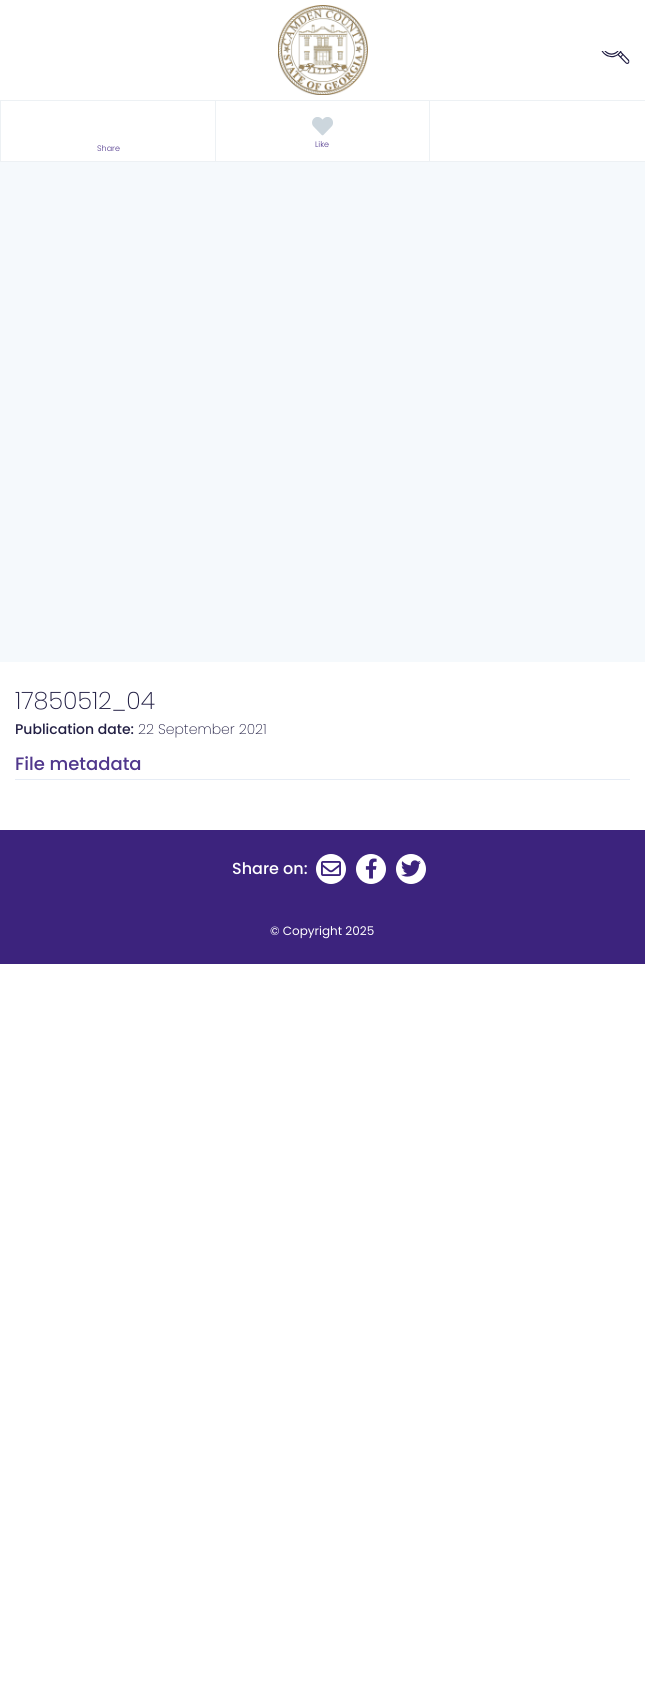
#include <cairo/cairo.h>
#include <math.h>
#include <stddef.h>

typedef struct { double x, y, w, h; unsigned color; } box_t;
static cairo_t *cr;

static void rgb(unsigned color)
{
	cairo_set_source_rgb(cr, (color >> 16) / 255.0, (color >> 8 & 255) / 255.0, (color & 255) / 255.0);
}

static void image(const char *path, double x, double y, double w, double h)
{
	cairo_surface_t *image = cairo_image_surface_create_from_png(path);
	cairo_save(cr);
	cairo_set_source_surface(cr, image, x, y);
	cairo_rectangle(cr, x, y, w, h);
	cairo_fill(cr);
	cairo_restore(cr);
	cairo_surface_destroy(image);
}

int main(void) {
	cairo_surface_t *surface = cairo_image_surface_create(CAIRO_FORMAT_RGB24, 645, 1703);
	cr = cairo_create(surface);
	cairo_font_options_t *options = cairo_font_options_create();
	cairo_font_options_set_hint_metrics(options, CAIRO_HINT_METRICS_OFF);
	cairo_font_options_set_hint_style(options, CAIRO_HINT_STYLE_NONE);
	cairo_set_font_options(cr, options);
	cairo_set_miter_limit(cr, 4);
	rgb(0xffffff);
	cairo_paint(cr);
	image("img/1.png", 278, 5, 90, 90);
	image("img/2.png", 601, 51, 29, 13);
	{
		static const box_t items[] = {
			{0, 100, 645, 1, 0xedf1f4},
			{0, 161, 645, 1, 0xedf1f4},
			{0, 101, 1, 60, 0xedf1f4},
			{429, 101, 1, 60, 0xedf1f4},
			{215, 101, 1, 60, 0xedf1f4},
		};
		for (size_t i = 0; i < sizeof items / sizeof *items; i++) {
			rgb(items[i].color);
			cairo_rectangle(cr, items[i].x, items[i].y, items[i].w, items[i].h);
			cairo_fill(cr);
		}
	}
	image("img/3.png", 312, 117, 21, 19);
	{
		static const box_t items[] = {
			{0, 162, 645, 500, 0xf5f9fc},
			{15, 779, 615, 1, 0xe6ecf5},
			{0, 830, 645, 134, 0x3c237d},
		};
		for (size_t i = 0; i < sizeof items / sizeof *items; i++) {
			rgb(items[i].color);
			cairo_rectangle(cr, items[i].x, items[i].y, items[i].w, items[i].h);
			cairo_fill(cr);
		}
	}
	rgb(0xffffff);
	cairo_arc(cr, 331, 869, 15, 0, 2 * M_PI);
	cairo_fill(cr);
	image("img/4.png", 321, 861, 20, 15);
	cairo_arc(cr, 371, 869, 15, 0, 2 * M_PI);
	cairo_fill(cr);
	image("img/5.png", 365, 858, 12, 21);
	cairo_arc(cr, 411, 869, 15, 0, 2 * M_PI);
	cairo_fill(cr);
	image("img/6.png", 401, 860, 20, 17);
	cairo_select_font_face(cr, "Poppins Light", CAIRO_FONT_SLANT_NORMAL, CAIRO_FONT_WEIGHT_NORMAL);
	cairo_set_font_size(cr, 8);
	rgb(0x50378c);
	cairo_move_to(cr, 97, 151);
	cairo_show_text(cr, "Share");
	cairo_move_to(cr, 315, 147);
	cairo_show_text(cr, "Like");
	cairo_select_font_face(cr, "Poppins ExtraLight", CAIRO_FONT_SLANT_NORMAL, CAIRO_FONT_WEIGHT_NORMAL);
	cairo_set_font_size(cr, 24);
	rgb(0x221f44);
	cairo_move_to(cr, 15, 709);
	cairo_show_text(cr, "17850512_04");
	cairo_select_font_face(cr, "Poppins Medium", CAIRO_FONT_SLANT_NORMAL, CAIRO_FONT_WEIGHT_NORMAL);
	cairo_set_font_size(cr, 14);
	cairo_move_to(cr, 15, 734);
	cairo_show_text(cr, "Publication date:");
	cairo_select_font_face(cr, "Poppins ExtraLight", CAIRO_FONT_SLANT_NORMAL, CAIRO_FONT_WEIGHT_NORMAL);
	cairo_move_to(cr, 138, 734);
	cairo_show_text(cr, "22 September 2021");
	cairo_select_font_face(cr, "Poppins Medium", CAIRO_FONT_SLANT_NORMAL, CAIRO_FONT_WEIGHT_NORMAL);
	cairo_set_font_size(cr, 18);
	rgb(0x50378c);
	cairo_move_to(cr, 15, 770);
	cairo_show_text(cr, "File metadata");
	cairo_set_font_size(cr, 16);
	rgb(0xffffff);
	cairo_move_to(cr, 232, 874);
	cairo_show_text(cr, "Share on:");
	cairo_select_font_face(cr, "Poppins", CAIRO_FONT_SLANT_NORMAL, CAIRO_FONT_WEIGHT_NORMAL);
	cairo_set_font_size(cr, 12);
	cairo_move_to(cr, 270, 935);
	cairo_show_text(cr, "© Copyright 2025");
	cairo_surface_write_to_png(surface, "page.png");
	cairo_font_options_destroy(options);
	cairo_destroy(cr);
	cairo_surface_destroy(surface);
	return 0;
}
